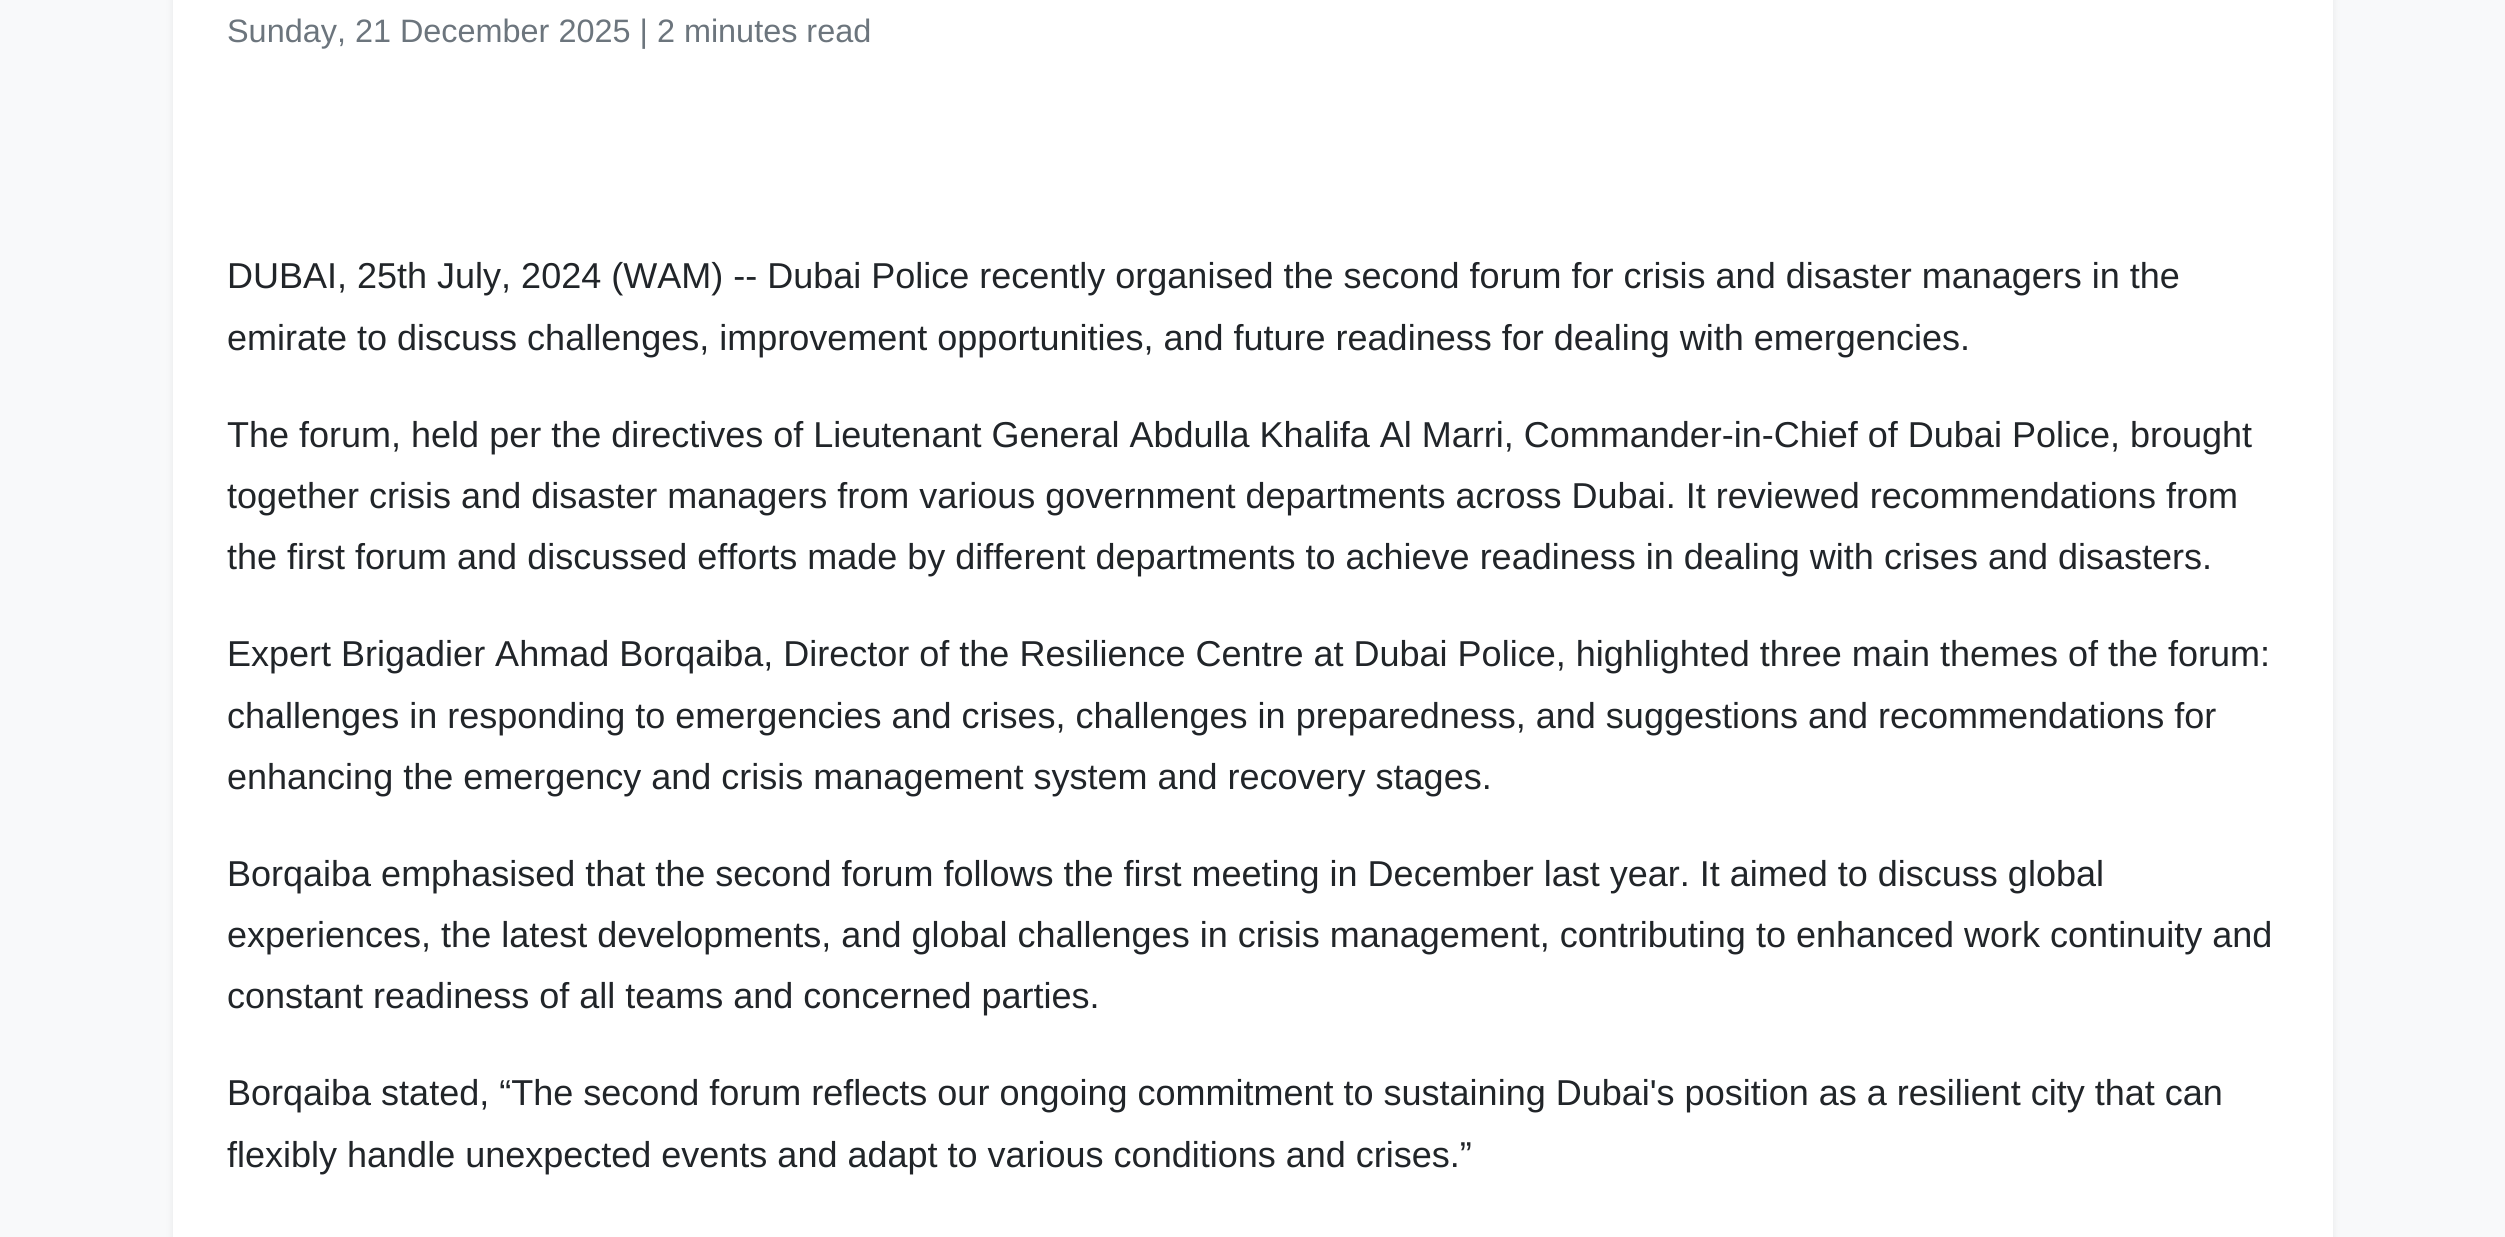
#include <cairo/cairo.h>
#include <math.h>
#include <stddef.h>

typedef struct { double x, y; const char *s; } line_t;
static cairo_t *cr;

static void rgb(unsigned color)
{
	cairo_set_source_rgb(cr, (color >> 16) / 255.0, (color >> 8 & 255) / 255.0, (color & 255) / 255.0);
}

static void rrect(double x, double y, double w, double h, double r)
{
	cairo_new_sub_path(cr);
	cairo_arc(cr, x + w - r, y + h - r, r, 0, M_PI / 2);
	cairo_arc(cr, x + r, y + h - r, r, M_PI / 2, M_PI);
	cairo_arc(cr, x + r, y + r, r, M_PI, 1.5 * M_PI);
	cairo_arc(cr, x + w - r, y + r, r, 1.5 * M_PI, 2 * M_PI);
	cairo_close_path(cr);
}

static void soft_shadow(double x, double y, double w, double h, double r, double blur, double alpha)
{
	cairo_push_group_with_content(cr, CAIRO_CONTENT_ALPHA);
	cairo_set_operator(cr, CAIRO_OPERATOR_SOURCE);
	for (int i = 15; i >= -15 && fmin(w, h) + blur * i / 3 > 0; i -= 2) {
		double e = blur * i / 6;
		cairo_set_source_rgba(cr, 0, 0, 0, alpha * erfc((i - 1) / 8.5) / 2);
		rrect(x - e, y - e, w + 2 * e, h + 2 * e, fmax(0, fmin(r + e + blur * .6, fmin(w, h) / 2 + e)));
		cairo_fill(cr);
	}
	cairo_pattern_t *soft = cairo_pop_group(cr);
	cairo_mask(cr, soft);
	cairo_pattern_destroy(soft);
}

int main(void) {
	cairo_surface_t *surface = cairo_image_surface_create(CAIRO_FORMAT_RGB24, 2505, 1237);
	cr = cairo_create(surface);
	cairo_font_options_t *options = cairo_font_options_create();
	cairo_font_options_set_hint_metrics(options, CAIRO_HINT_METRICS_OFF);
	cairo_font_options_set_hint_style(options, CAIRO_HINT_STYLE_NONE);
	cairo_set_font_options(cr, options);
	cairo_set_miter_limit(cr, 4);
	rgb(0xf8f9fa);
	cairo_paint(cr);
	rgb(0x000000);
	soft_shadow(173, -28, 2160, 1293, 14, 4.5, 0.07);
	rgb(0xffffff);
	cairo_rectangle(cr, 173, 0, 2160, 1237);
	cairo_fill(cr);
	cairo_select_font_face(cr, "Liberation Sans", CAIRO_FONT_SLANT_NORMAL, CAIRO_FONT_WEIGHT_NORMAL);
	cairo_set_font_size(cr, 32.4);
	rgb(0x6c757d);
	cairo_move_to(cr, 227, 42);
	cairo_show_text(cr, "Sunday, 21 December 2025 | 2 minutes read");
	cairo_set_font_size(cr, 36);
	rgb(0x212529);
	{
		static const line_t items[] = {
			{227, 288, "DUBAI, 25th July, 2024 (WAM) -- Dubai Police recently organised the second forum for crisis and disaster managers in the"},
			{227, 350, "emirate to discuss challenges, improvement opportunities, and future readiness for dealing with emergencies."},
			{227, 447, "The forum, held per the directives of Lieutenant General Abdulla Khalifa Al Marri, Commander-in-Chief of Dubai Police, brought"},
			{227, 508, "together crisis and disaster managers from various government departments across Dubai. It reviewed recommendations from"},
			{227, 569, "the first forum and discussed efforts made by different departments to achieve readiness in dealing with crises and disasters."},
			{227, 666, "Expert Brigadier Ahmad Borqaiba, Director of the Resilience Centre at Dubai Police, highlighted three main themes of the forum:"},
			{227, 728, "challenges in responding to emergencies and crises, challenges in preparedness, and suggestions and recommendations for"},
			{227, 789, "enhancing the emergency and crisis management system and recovery stages."},
			{227, 886, "Borqaiba emphasised that the second forum follows the first meeting in December last year. It aimed to discuss global"},
			{227, 947, "experiences, the latest developments, and global challenges in crisis management, contributing to enhanced work continuity and"},
			{227, 1008, "constant readiness of all teams and concerned parties."},
			{227, 1105, "Borqaiba stated, “The second forum reflects our ongoing commitment to sustaining Dubai's position as a resilient city that can"},
			{227, 1167, "flexibly handle unexpected events and adapt to various conditions and crises.”"},
		};
		for (size_t i = 0; i < sizeof items / sizeof *items; i++) {
			cairo_move_to(cr, items[i].x, items[i].y);
			cairo_show_text(cr, items[i].s);
		}
	}
	cairo_surface_write_to_png(surface, "page.png");
	cairo_font_options_destroy(options);
	cairo_destroy(cr);
	cairo_surface_destroy(surface);
	return 0;
}
